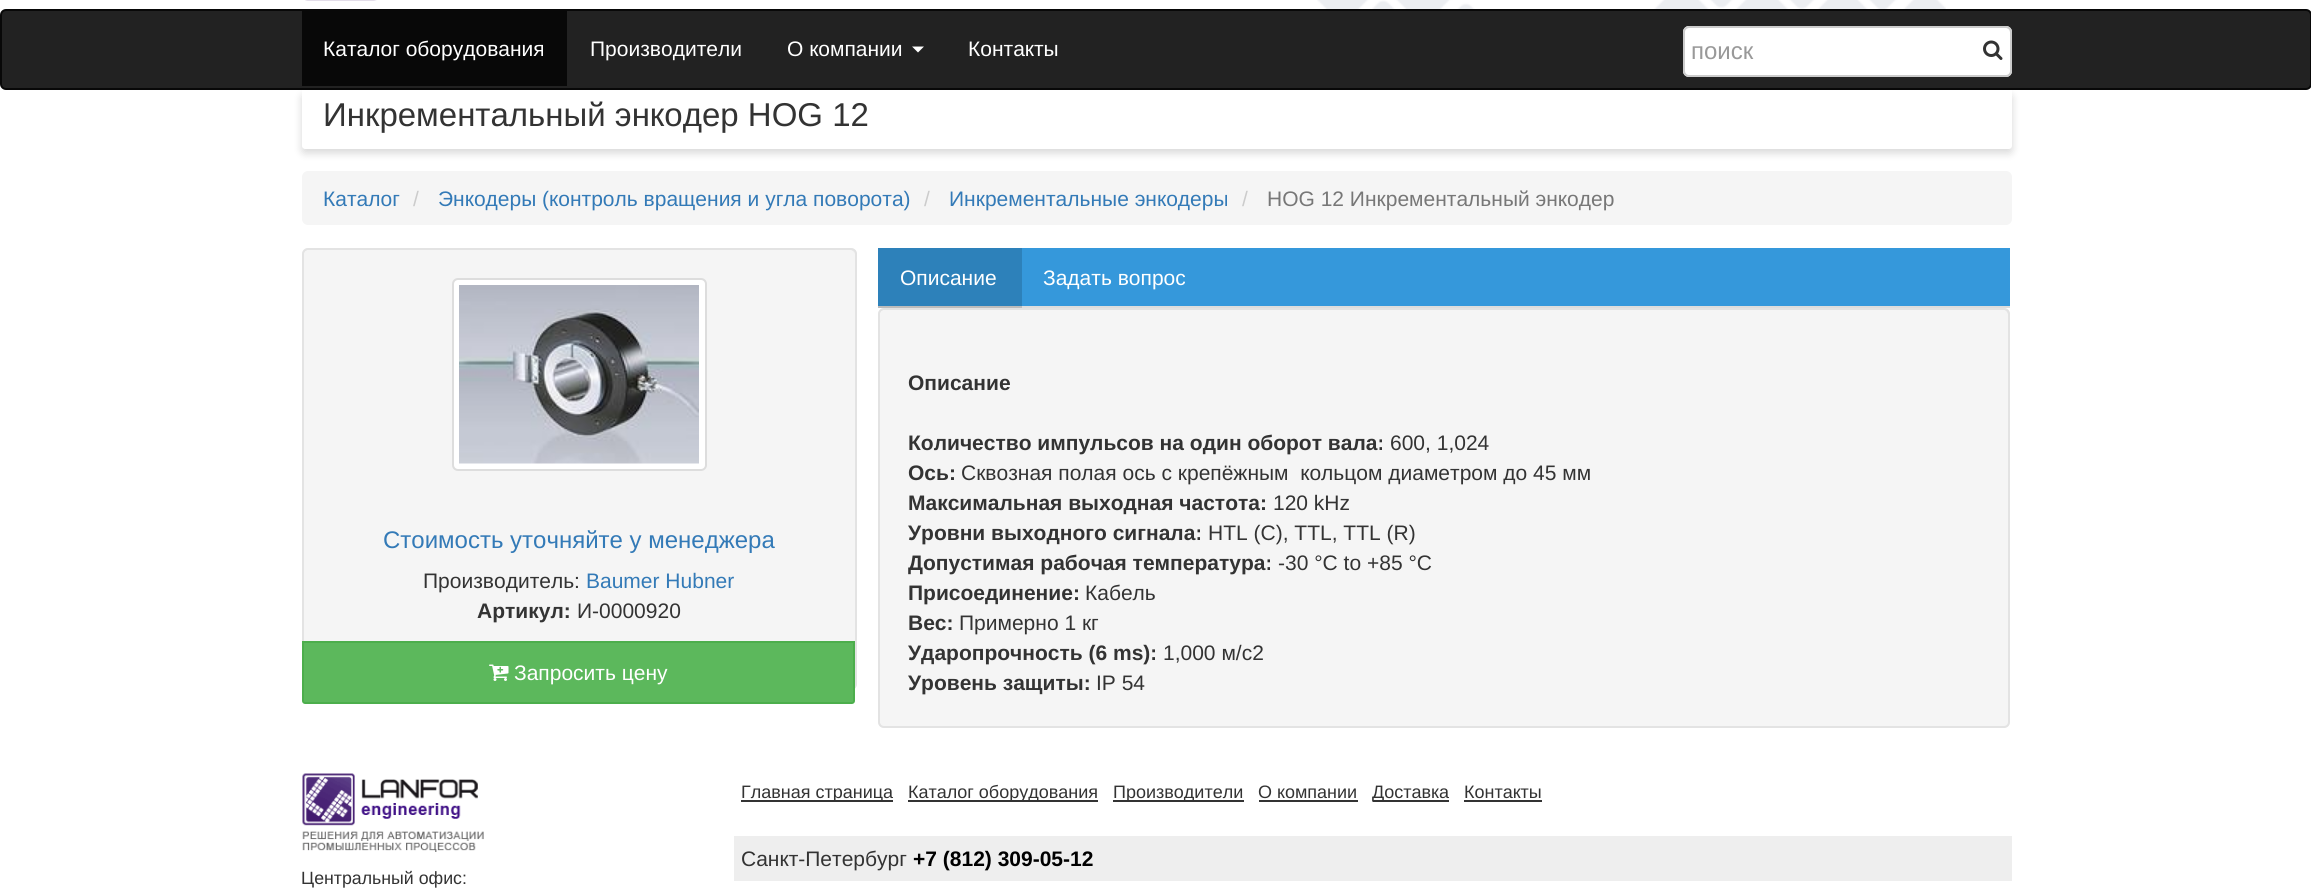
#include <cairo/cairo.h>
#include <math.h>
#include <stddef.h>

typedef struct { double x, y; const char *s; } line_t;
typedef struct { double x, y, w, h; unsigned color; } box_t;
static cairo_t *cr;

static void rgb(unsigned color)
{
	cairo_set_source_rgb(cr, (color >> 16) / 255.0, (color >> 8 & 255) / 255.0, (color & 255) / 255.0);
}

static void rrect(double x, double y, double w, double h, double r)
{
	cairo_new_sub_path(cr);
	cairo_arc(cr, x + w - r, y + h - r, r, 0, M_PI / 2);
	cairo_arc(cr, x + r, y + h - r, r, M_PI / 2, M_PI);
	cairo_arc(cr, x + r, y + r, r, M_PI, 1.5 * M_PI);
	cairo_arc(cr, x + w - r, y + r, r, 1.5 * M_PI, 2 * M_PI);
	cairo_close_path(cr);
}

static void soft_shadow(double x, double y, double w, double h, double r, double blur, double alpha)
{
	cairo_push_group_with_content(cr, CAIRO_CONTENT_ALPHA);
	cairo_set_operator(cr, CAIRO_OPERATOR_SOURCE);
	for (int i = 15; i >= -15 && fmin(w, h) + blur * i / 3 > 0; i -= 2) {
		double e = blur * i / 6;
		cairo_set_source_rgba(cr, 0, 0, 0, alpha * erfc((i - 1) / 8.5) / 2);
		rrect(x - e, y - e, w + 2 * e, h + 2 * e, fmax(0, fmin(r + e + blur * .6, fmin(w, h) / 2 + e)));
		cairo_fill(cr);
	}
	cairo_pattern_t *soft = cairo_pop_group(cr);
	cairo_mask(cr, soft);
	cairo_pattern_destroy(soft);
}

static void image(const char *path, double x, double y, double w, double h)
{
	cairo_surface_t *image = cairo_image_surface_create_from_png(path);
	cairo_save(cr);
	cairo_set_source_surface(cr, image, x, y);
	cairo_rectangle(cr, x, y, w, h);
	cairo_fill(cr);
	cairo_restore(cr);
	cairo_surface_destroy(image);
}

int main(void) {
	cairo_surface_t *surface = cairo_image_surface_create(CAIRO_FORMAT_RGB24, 2311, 889);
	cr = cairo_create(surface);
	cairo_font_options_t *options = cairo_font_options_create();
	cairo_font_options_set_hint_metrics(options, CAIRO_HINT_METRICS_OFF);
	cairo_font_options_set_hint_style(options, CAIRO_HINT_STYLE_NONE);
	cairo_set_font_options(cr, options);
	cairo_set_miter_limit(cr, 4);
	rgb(0xffffff);
	cairo_paint(cr);
	image("img/1.png", 1317, 0, 629, 9);
	image("img/2.png", 305, 0, 72, 1);
	rgb(0x000000);
	soft_shadow(302, 95, 1710, 58, 3, 4.5, 0.16);
	rgb(0x222222);
	rrect(1, 10, 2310, 79, 5);
	cairo_fill_preserve(cr);
	rgb(0x080808);
	cairo_stroke(cr);
	cairo_rectangle(cr, 302, 11, 265, 75);
	cairo_fill(cr);
	rgb(0xffffff);
	cairo_new_path(cr);
	cairo_move_to(cr, 912, 46.5);
	cairo_line_to(cr, 924, 46.5);
	cairo_line_to(cr, 918, 52.5);
	cairo_close_path(cr);
	cairo_fill(cr);
	rrect(1683, 26, 329, 51, 6);
	cairo_fill(cr);
	rgb(0xececec);
	cairo_new_path(cr);
	cairo_move_to(cr, 1689, 28);
	cairo_line_to(cr, 2006, 28);
	cairo_curve_to(cr, 2008, 28, 2010, 31, 2010, 33);
	cairo_line_to(cr, 2010, 32);
	cairo_curve_to(cr, 2010, 29, 2008, 27, 2005, 27);
	cairo_line_to(cr, 1690, 27);
	cairo_curve_to(cr, 1688, 27, 1686, 28, 1685, 30);
	cairo_curve_to(cr, 1686, 29, 1688, 28, 1689, 28);
	cairo_close_path(cr);
	cairo_fill(cr);
	rrect(1684, 27, 327, 49, 5);
	rgb(0xcccccc);
	cairo_stroke(cr);
	image("img/3.png", 1983, 40, 20, 20);
	rgb(0xffffff);
	cairo_new_path(cr);
	cairo_move_to(cr, 302, 90);
	cairo_line_to(cr, 2012, 90);
	cairo_line_to(cr, 2012, 146);
	cairo_curve_to(cr, 2012, 147.5, 2010.5, 149, 2009, 149);
	cairo_line_to(cr, 305, 149);
	cairo_curve_to(cr, 303.5, 149, 302, 147.5, 302, 146);
	cairo_close_path(cr);
	cairo_fill(cr);
	rgb(0xf5f5f5);
	rrect(302, 171, 1710, 54, 6);
	cairo_fill(cr);
	rrect(302, 248, 555, 442, 6);
	cairo_fill(cr);
	rgb(0xe9e9e9);
	cairo_new_path(cr);
	cairo_move_to(cr, 308, 250);
	cairo_line_to(cr, 850, 250);
	cairo_curve_to(cr, 853, 250, 855, 253, 855, 255);
	cairo_curve_to(cr, 855, 252, 853, 249, 850, 249);
	cairo_line_to(cr, 308, 249);
	cairo_curve_to(cr, 305, 249, 303, 252, 303, 255);
	cairo_curve_to(cr, 303, 253, 305, 250, 308, 250);
	cairo_close_path(cr);
	cairo_fill(cr);
	rrect(303, 249, 553, 440, 5);
	rgb(0xe3e3e3);
	cairo_stroke(cr);
	rgb(0xffffff);
	rrect(453, 279, 253, 191, 5);
	cairo_fill_preserve(cr);
	rgb(0xdddddd);
	cairo_stroke(cr);
	image("img/4.png", 459, 285, 240, 179);
	rgb(0x5cb85c);
	cairo_new_path(cr);
	cairo_move_to(cr, 303, 642);
	cairo_line_to(cr, 854, 642);
	cairo_line_to(cr, 854, 701);
	cairo_curve_to(cr, 854, 702, 853, 703, 852, 703);
	cairo_line_to(cr, 305, 703);
	cairo_curve_to(cr, 304, 703, 303, 702, 303, 701);
	cairo_close_path(cr);
	cairo_fill_preserve(cr);
	rgb(0x4cae4c);
	cairo_stroke(cr);
	image("img/5.png", 489, 664, 20, 17);
	{
		static const box_t items[] = {
			{1022, 248, 988, 58, 0x3598db},
			{1020, 248, 2, 60, 0x2d81ba},
			{878, 248, 142, 58, 0x2d81ba},
			{1022, 306, 988, 2, 0xdddddd},
			{878, 306, 144, 2, 0xbcbcbc},
		};
		for (size_t i = 0; i < sizeof items / sizeof *items; i++) {
			rgb(items[i].color);
			cairo_rectangle(cr, items[i].x, items[i].y, items[i].w, items[i].h);
			cairo_fill(cr);
		}
	}
	rgb(0xf5f5f5);
	rrect(878, 308, 1132, 420, 6);
	cairo_fill(cr);
	rgb(0xe9e9e9);
	cairo_new_path(cr);
	cairo_move_to(cr, 884, 310);
	cairo_line_to(cr, 2004, 310);
	cairo_curve_to(cr, 2006, 310, 2008, 313, 2008, 315);
	cairo_line_to(cr, 2008, 724);
	cairo_curve_to(cr, 2009, 723, 2009, 722, 2009, 721);
	cairo_line_to(cr, 2009, 314);
	cairo_curve_to(cr, 2009, 311, 2007, 309, 2004, 309);
	cairo_line_to(cr, 884, 309);
	cairo_curve_to(cr, 881, 309, 879, 311, 879, 314);
	cairo_line_to(cr, 879, 315);
	cairo_curve_to(cr, 879, 313, 881, 310, 884, 310);
	cairo_close_path(cr);
	cairo_fill(cr);
	rrect(879, 309, 1130, 418, 5);
	rgb(0xe3e3e3);
	cairo_stroke(cr);
	{
		static const box_t items[] = {
			{741, 800, 152, 2, 0x333333},
			{908, 800, 190, 2, 0x333333},
			{1113, 800, 131, 2, 0x333333},
			{1259, 800, 99, 2, 0x333333},
			{1373, 800, 76, 2, 0x333333},
			{1464, 800, 78, 2, 0x333333},
			{734, 836, 1278, 45, 0xeeeeee},
		};
		for (size_t i = 0; i < sizeof items / sizeof *items; i++) {
			rgb(items[i].color);
			cairo_rectangle(cr, items[i].x, items[i].y, items[i].w, items[i].h);
			cairo_fill(cr);
		}
	}
	image("img/6.png", 302, 773, 182, 79);
	cairo_select_font_face(cr, "Liberation Sans", CAIRO_FONT_SLANT_NORMAL, CAIRO_FONT_WEIGHT_NORMAL);
	cairo_set_font_size(cr, 21);
	rgb(0xffffff);
	{
		static const line_t items[] = {
			{323, 56, "Каталог оборудования"},
			{590, 56, "Производители"},
			{787, 56, "О компании"},
			{968, 56, "Контакты"},
		};
		for (size_t i = 0; i < sizeof items / sizeof *items; i++) {
			cairo_move_to(cr, items[i].x, items[i].y);
			cairo_show_text(cr, items[i].s);
		}
	}
	cairo_set_font_size(cr, 24);
	rgb(0x999999);
	cairo_move_to(cr, 1691, 59);
	cairo_show_text(cr, "поиск");
	cairo_set_font_size(cr, 33);
	rgb(0x333333);
	cairo_move_to(cr, 323, 126);
	cairo_show_text(cr, "Инкрементальный энкодер HOG 12");
	cairo_set_font_size(cr, 21);
	rgb(0x337ab7);
	cairo_move_to(cr, 323, 206);
	cairo_show_text(cr, "Каталог");
	rgb(0xcccccc);
	cairo_move_to(cr, 413, 206);
	cairo_show_text(cr, "/");
	rgb(0x337ab7);
	cairo_move_to(cr, 438, 206);
	cairo_show_text(cr, "Энкодеры (контроль вращения и угла поворота)");
	rgb(0xcccccc);
	cairo_move_to(cr, 924, 206);
	cairo_show_text(cr, "/");
	rgb(0x337ab7);
	cairo_move_to(cr, 949, 206);
	cairo_show_text(cr, "Инкрементальные энкодеры");
	rgb(0xcccccc);
	cairo_move_to(cr, 1242, 206);
	cairo_show_text(cr, "/");
	rgb(0x777777);
	cairo_move_to(cr, 1267, 206);
	cairo_show_text(cr, "HOG 12 Инкрементальный энкодер");
	cairo_set_font_size(cr, 24);
	rgb(0x337ab7);
	cairo_move_to(cr, 383, 548);
	cairo_show_text(cr, "Стоимость уточняйте у менеджера");
	cairo_set_font_size(cr, 21);
	rgb(0x333333);
	cairo_move_to(cr, 423, 588);
	cairo_show_text(cr, "Производитель:");
	rgb(0x337ab7);
	cairo_move_to(cr, 586, 588);
	cairo_show_text(cr, "Baumer Hubner");
	cairo_select_font_face(cr, "Liberation Sans", CAIRO_FONT_SLANT_NORMAL, CAIRO_FONT_WEIGHT_BOLD);
	rgb(0x333333);
	cairo_move_to(cr, 477, 618);
	cairo_show_text(cr, "Артикул:");
	cairo_select_font_face(cr, "Liberation Sans", CAIRO_FONT_SLANT_NORMAL, CAIRO_FONT_WEIGHT_NORMAL);
	cairo_move_to(cr, 577, 618);
	cairo_show_text(cr, "И-0000920");
	rgb(0xffffff);
	{
		static const line_t items[] = {
			{514, 680, "Запросить цену"},
			{900, 285, "Описание"},
			{1043, 285, "Задать вопрос"},
		};
		for (size_t i = 0; i < sizeof items / sizeof *items; i++) {
			cairo_move_to(cr, items[i].x, items[i].y);
			cairo_show_text(cr, items[i].s);
		}
	}
	cairo_select_font_face(cr, "Liberation Sans", CAIRO_FONT_SLANT_NORMAL, CAIRO_FONT_WEIGHT_BOLD);
	rgb(0x333333);
	cairo_move_to(cr, 908, 390);
	cairo_show_text(cr, "Описание");
	cairo_move_to(cr, 908, 450);
	cairo_show_text(cr, "Количество импульсов на один оборот вала:");
	cairo_select_font_face(cr, "Liberation Sans", CAIRO_FONT_SLANT_NORMAL, CAIRO_FONT_WEIGHT_NORMAL);
	cairo_move_to(cr, 1390, 450);
	cairo_show_text(cr, "600, 1,024");
	cairo_select_font_face(cr, "Liberation Sans", CAIRO_FONT_SLANT_NORMAL, CAIRO_FONT_WEIGHT_BOLD);
	cairo_move_to(cr, 908, 480);
	cairo_show_text(cr, "Ось:");
	cairo_select_font_face(cr, "Liberation Sans", CAIRO_FONT_SLANT_NORMAL, CAIRO_FONT_WEIGHT_NORMAL);
	cairo_move_to(cr, 961, 480);
	cairo_show_text(cr, "Сквозная полая ось с крепёжным  кольцом диаметром до 45 мм");
	cairo_select_font_face(cr, "Liberation Sans", CAIRO_FONT_SLANT_NORMAL, CAIRO_FONT_WEIGHT_BOLD);
	cairo_move_to(cr, 908, 510);
	cairo_show_text(cr, "Максимальная выходная частота:");
	cairo_select_font_face(cr, "Liberation Sans", CAIRO_FONT_SLANT_NORMAL, CAIRO_FONT_WEIGHT_NORMAL);
	cairo_move_to(cr, 1273, 510);
	cairo_show_text(cr, "120 kHz");
	cairo_select_font_face(cr, "Liberation Sans", CAIRO_FONT_SLANT_NORMAL, CAIRO_FONT_WEIGHT_BOLD);
	cairo_move_to(cr, 908, 540);
	cairo_show_text(cr, "Уровни выходного сигнала:");
	cairo_select_font_face(cr, "Liberation Sans", CAIRO_FONT_SLANT_NORMAL, CAIRO_FONT_WEIGHT_NORMAL);
	cairo_move_to(cr, 1208, 540);
	cairo_show_text(cr, "HTL (C), TTL, TTL (R)");
	cairo_select_font_face(cr, "Liberation Sans", CAIRO_FONT_SLANT_NORMAL, CAIRO_FONT_WEIGHT_BOLD);
	cairo_move_to(cr, 908, 570);
	cairo_show_text(cr, "Допустимая рабочая температура:");
	cairo_select_font_face(cr, "Liberation Sans", CAIRO_FONT_SLANT_NORMAL, CAIRO_FONT_WEIGHT_NORMAL);
	cairo_move_to(cr, 1278, 570);
	cairo_show_text(cr, "-30 °C to +85 °C");
	cairo_select_font_face(cr, "Liberation Sans", CAIRO_FONT_SLANT_NORMAL, CAIRO_FONT_WEIGHT_BOLD);
	cairo_move_to(cr, 908, 600);
	cairo_show_text(cr, "Присоединение:");
	cairo_select_font_face(cr, "Liberation Sans", CAIRO_FONT_SLANT_NORMAL, CAIRO_FONT_WEIGHT_NORMAL);
	cairo_move_to(cr, 1085, 600);
	cairo_show_text(cr, "Кабель");
	cairo_select_font_face(cr, "Liberation Sans", CAIRO_FONT_SLANT_NORMAL, CAIRO_FONT_WEIGHT_BOLD);
	cairo_move_to(cr, 908, 630);
	cairo_show_text(cr, "Вес:");
	cairo_select_font_face(cr, "Liberation Sans", CAIRO_FONT_SLANT_NORMAL, CAIRO_FONT_WEIGHT_NORMAL);
	cairo_move_to(cr, 959, 630);
	cairo_show_text(cr, "Примерно 1 кг");
	cairo_select_font_face(cr, "Liberation Sans", CAIRO_FONT_SLANT_NORMAL, CAIRO_FONT_WEIGHT_BOLD);
	cairo_move_to(cr, 908, 660);
	cairo_show_text(cr, "Ударопрочность (6 ms):");
	cairo_select_font_face(cr, "Liberation Sans", CAIRO_FONT_SLANT_NORMAL, CAIRO_FONT_WEIGHT_NORMAL);
	cairo_move_to(cr, 1163, 660);
	cairo_show_text(cr, "1,000 м/c2");
	cairo_select_font_face(cr, "Liberation Sans", CAIRO_FONT_SLANT_NORMAL, CAIRO_FONT_WEIGHT_BOLD);
	cairo_move_to(cr, 908, 690);
	cairo_show_text(cr, "Уровень защиты:");
	cairo_select_font_face(cr, "Liberation Sans", CAIRO_FONT_SLANT_NORMAL, CAIRO_FONT_WEIGHT_NORMAL);
	cairo_move_to(cr, 1096, 690);
	cairo_show_text(cr, "IP 54");
	cairo_set_font_size(cr, 18);
	{
		static const line_t items[] = {
			{741, 798, "Главная страница"},
			{908, 798, "Каталог оборудования"},
			{1113, 798, "Производители"},
			{1258, 798, "О компании"},
			{1372, 798, "Доставка"},
			{1464, 798, "Контакты"},
		};
		for (size_t i = 0; i < sizeof items / sizeof *items; i++) {
			cairo_move_to(cr, items[i].x, items[i].y);
			cairo_show_text(cr, items[i].s);
		}
	}
	cairo_set_font_size(cr, 21);
	cairo_move_to(cr, 741, 866);
	cairo_show_text(cr, "Санкт-Петербург");
	cairo_select_font_face(cr, "Liberation Sans", CAIRO_FONT_SLANT_NORMAL, CAIRO_FONT_WEIGHT_BOLD);
	rgb(0x000000);
	cairo_move_to(cr, 913, 866);
	cairo_show_text(cr, "+7 (812) 309-05-12");
	cairo_select_font_face(cr, "Liberation Sans", CAIRO_FONT_SLANT_NORMAL, CAIRO_FONT_WEIGHT_NORMAL);
	cairo_set_font_size(cr, 17.75);
	rgb(0x333333);
	cairo_move_to(cr, 301, 884);
	cairo_show_text(cr, "Центральный офис:");
	cairo_surface_write_to_png(surface, "page.png");
	cairo_font_options_destroy(options);
	cairo_destroy(cr);
	cairo_surface_destroy(surface);
	return 0;
}
